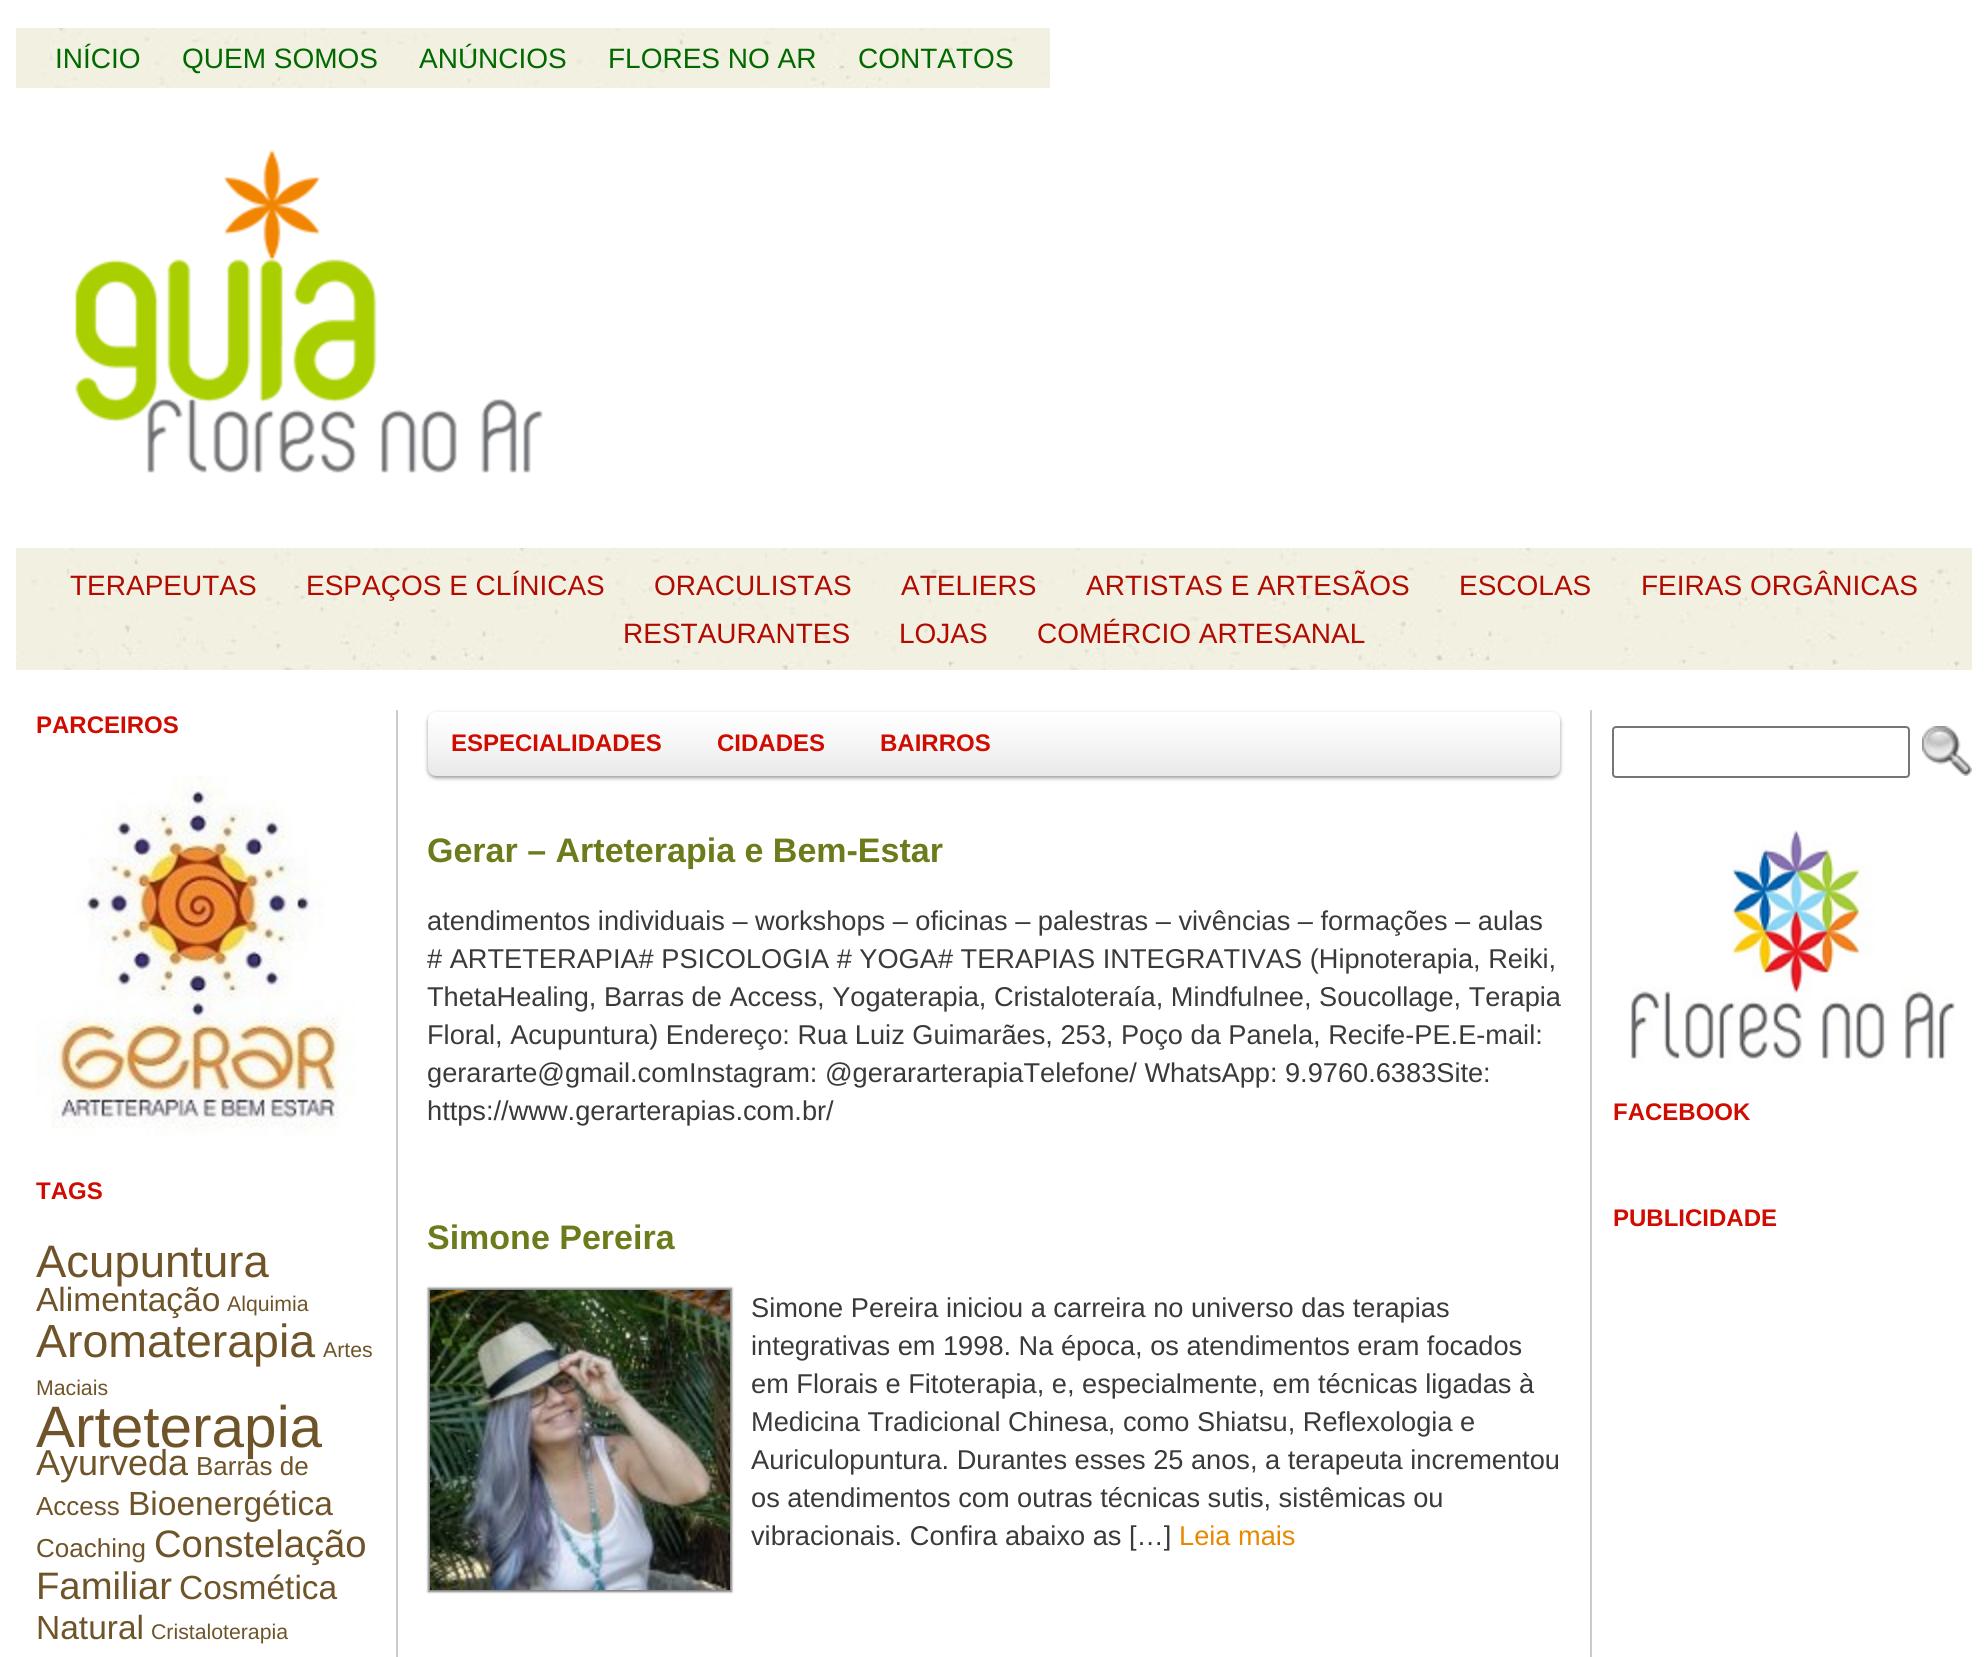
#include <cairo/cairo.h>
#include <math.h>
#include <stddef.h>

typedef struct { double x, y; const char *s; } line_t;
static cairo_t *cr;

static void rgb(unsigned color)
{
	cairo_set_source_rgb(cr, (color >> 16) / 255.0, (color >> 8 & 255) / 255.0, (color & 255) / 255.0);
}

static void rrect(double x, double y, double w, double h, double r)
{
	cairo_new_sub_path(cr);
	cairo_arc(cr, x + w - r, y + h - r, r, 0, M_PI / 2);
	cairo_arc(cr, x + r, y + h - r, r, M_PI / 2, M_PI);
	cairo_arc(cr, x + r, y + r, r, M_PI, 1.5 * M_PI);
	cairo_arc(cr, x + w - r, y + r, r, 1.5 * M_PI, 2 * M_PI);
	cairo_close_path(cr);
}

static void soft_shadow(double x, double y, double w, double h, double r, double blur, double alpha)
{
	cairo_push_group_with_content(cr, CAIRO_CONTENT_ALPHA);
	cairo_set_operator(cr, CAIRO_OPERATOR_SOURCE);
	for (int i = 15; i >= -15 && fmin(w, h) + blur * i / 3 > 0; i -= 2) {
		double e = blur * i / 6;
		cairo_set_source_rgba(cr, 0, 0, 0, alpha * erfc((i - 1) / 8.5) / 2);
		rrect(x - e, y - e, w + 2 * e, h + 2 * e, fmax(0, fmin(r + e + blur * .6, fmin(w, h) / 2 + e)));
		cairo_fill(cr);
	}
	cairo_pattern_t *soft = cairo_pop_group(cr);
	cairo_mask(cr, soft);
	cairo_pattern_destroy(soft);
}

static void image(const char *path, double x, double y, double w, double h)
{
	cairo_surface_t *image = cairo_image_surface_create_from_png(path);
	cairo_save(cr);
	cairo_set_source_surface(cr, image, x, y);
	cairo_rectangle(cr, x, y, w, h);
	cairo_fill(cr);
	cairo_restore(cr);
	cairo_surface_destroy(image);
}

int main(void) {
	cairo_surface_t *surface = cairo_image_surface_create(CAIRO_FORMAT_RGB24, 1988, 1657);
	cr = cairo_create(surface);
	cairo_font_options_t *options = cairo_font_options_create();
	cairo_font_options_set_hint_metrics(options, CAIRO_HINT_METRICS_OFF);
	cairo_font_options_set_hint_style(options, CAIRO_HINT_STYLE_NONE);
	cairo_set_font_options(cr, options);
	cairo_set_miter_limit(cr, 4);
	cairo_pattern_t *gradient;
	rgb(0xffffff);
	cairo_paint(cr);
	image("img/1.png", 16, 28, 1034, 60);
	image("img/2.png", 75, 149, 468, 324);
	image("img/3.png", 16, 548, 1956, 122);
	rgb(0xcccccc);
	cairo_rectangle(cr, 396, 710, 2, 947);
	cairo_fill(cr);
	image("img/4.png", 36, 776, 320, 360);
	rgb(0x000000);
	soft_shadow(428, 714, 1132, 64, 8, 2, 0.4);
	gradient = cairo_pattern_create_linear(994, 712, 994, 776);
	cairo_pattern_add_color_stop_rgba(gradient, 0, 1, 1, 1, 1);
	cairo_pattern_add_color_stop_rgba(gradient, 0.5, 0.965, 0.965, 0.965, 1);
	cairo_pattern_add_color_stop_rgba(gradient, 1, 0.91, 0.91, 0.91, 1);
	cairo_set_source(cr, gradient);
	cairo_pattern_destroy(gradient);
	rrect(428, 712, 1132, 64, 8);
	cairo_fill(cr);
	rgb(0x000000);
	soft_shadow(428, 1288, 304, 304, 0, 1, 0.5);
	image("img/5.png", 430, 1290, 300, 300);
	rgb(0xcccccc);
	cairo_rectangle(cr, 1590, 710, 2, 947);
	cairo_fill(cr);
	rrect(1613, 727, 296, 50, 3);
	rgb(0x767676);
	cairo_stroke(cr);
	image("img/6.png", 1922, 726, 50, 50);
	image("img/7.png", 1630, 824, 325, 240);
	cairo_select_font_face(cr, "Liberation Sans", CAIRO_FONT_SLANT_NORMAL, CAIRO_FONT_WEIGHT_NORMAL);
	cairo_set_font_size(cr, 28);
	rgb(0x006900);
	{
		static const line_t items[] = {
			{55, 68, "INÍCIO"},
			{182, 68, "QUEM SOMOS"},
			{419, 68, "ANÚNCIOS"},
			{608, 68, "FLORES NO AR"},
			{858, 68, "CONTATOS"},
		};
		for (size_t i = 0; i < sizeof items / sizeof *items; i++) {
			cairo_move_to(cr, items[i].x, items[i].y);
			cairo_show_text(cr, items[i].s);
		}
	}
	rgb(0xb10a00);
	{
		static const line_t items[] = {
			{70, 595, "TERAPEUTAS"},
			{306, 595, "ESPAÇOS E CLÍNICAS"},
			{654, 595, "ORACULISTAS"},
			{901, 595, "ATELIERS"},
			{1086, 595, "ARTISTAS E ARTESÃOS"},
			{1459, 595, "ESCOLAS"},
			{1641, 595, "FEIRAS ORGÂNICAS"},
			{623, 643, "RESTAURANTES"},
			{899, 643, "LOJAS"},
			{1037, 643, "COMÉRCIO ARTESANAL"},
		};
		for (size_t i = 0; i < sizeof items / sizeof *items; i++) {
			cairo_move_to(cr, items[i].x, items[i].y);
			cairo_show_text(cr, items[i].s);
		}
	}
	cairo_select_font_face(cr, "Liberation Sans", CAIRO_FONT_SLANT_NORMAL, CAIRO_FONT_WEIGHT_BOLD);
	cairo_set_font_size(cr, 24);
	rgb(0xd00c00);
	cairo_move_to(cr, 36, 733);
	cairo_show_text(cr, "PARCEIROS");
	cairo_move_to(cr, 36, 1199);
	cairo_show_text(cr, "TAGS");
	cairo_select_font_face(cr, "Liberation Sans", CAIRO_FONT_SLANT_NORMAL, CAIRO_FONT_WEIGHT_NORMAL);
	cairo_set_font_size(cr, 45.5);
	rgb(0x6f5429);
	cairo_move_to(cr, 36, 1277);
	cairo_show_text(cr, "Acupuntura");
	cairo_set_font_size(cr, 33.5);
	cairo_move_to(cr, 36, 1311);
	cairo_show_text(cr, "Alimentação");
	cairo_set_font_size(cr, 21.25);
	cairo_move_to(cr, 227, 1311);
	cairo_show_text(cr, "Alquimia");
	cairo_set_font_size(cr, 46.5);
	cairo_move_to(cr, 36, 1357);
	cairo_show_text(cr, "Aromaterapia");
	cairo_set_font_size(cr, 21.25);
	cairo_move_to(cr, 323, 1357);
	cairo_show_text(cr, "Artes");
	cairo_move_to(cr, 36, 1395);
	cairo_show_text(cr, "Maciais");
	cairo_set_font_size(cr, 58.5);
	cairo_move_to(cr, 36, 1447);
	cairo_show_text(cr, "Arteterapia");
	cairo_set_font_size(cr, 36);
	cairo_move_to(cr, 36, 1475);
	cairo_show_text(cr, "Ayurveda");
	cairo_set_font_size(cr, 26);
	cairo_move_to(cr, 196, 1475);
	cairo_show_text(cr, "Barras de");
	cairo_move_to(cr, 36, 1515);
	cairo_show_text(cr, "Access");
	cairo_set_font_size(cr, 33.5);
	cairo_move_to(cr, 128, 1515);
	cairo_show_text(cr, "Bioenergética");
	cairo_set_font_size(cr, 26);
	cairo_move_to(cr, 36, 1557);
	cairo_show_text(cr, "Coaching");
	cairo_set_font_size(cr, 38.25);
	cairo_move_to(cr, 154, 1557);
	cairo_show_text(cr, "Constelação");
	cairo_move_to(cr, 36, 1599);
	cairo_show_text(cr, "Familiar");
	cairo_set_font_size(cr, 33.5);
	cairo_move_to(cr, 179, 1599);
	cairo_show_text(cr, "Cosmética");
	cairo_move_to(cr, 36, 1639);
	cairo_show_text(cr, "Natural");
	cairo_set_font_size(cr, 21.25);
	cairo_move_to(cr, 151, 1639);
	cairo_show_text(cr, "Cristaloterapia");
	cairo_select_font_face(cr, "Liberation Sans", CAIRO_FONT_SLANT_NORMAL, CAIRO_FONT_WEIGHT_BOLD);
	cairo_set_font_size(cr, 24);
	rgb(0xd00c00);
	{
		static const line_t items[] = {
			{451, 751, "ESPECIALIDADES"},
			{717, 751, "CIDADES"},
			{880, 751, "BAIRROS"},
		};
		for (size_t i = 0; i < sizeof items / sizeof *items; i++) {
			cairo_move_to(cr, items[i].x, items[i].y);
			cairo_show_text(cr, items[i].s);
		}
	}
	cairo_set_font_size(cr, 34);
	rgb(0x6c7b1b);
	cairo_move_to(cr, 427, 862);
	cairo_show_text(cr, "Gerar – Arteterapia e Bem-Estar");
	cairo_select_font_face(cr, "Liberation Sans", CAIRO_FONT_SLANT_NORMAL, CAIRO_FONT_WEIGHT_NORMAL);
	cairo_set_font_size(cr, 27.2);
	rgb(0x3a3a3a);
	{
		static const line_t items[] = {
			{427, 930, "atendimentos individuais – workshops – oficinas – palestras – vivências – formações – aulas"},
			{427, 968, "# ARTETERAPIA# PSICOLOGIA # YOGA# TERAPIAS INTEGRATIVAS (Hipnoterapia, Reiki,"},
			{427, 1006, "ThetaHealing, Barras de Access, Yogaterapia, Cristaloteraía, Mindfulnee, Soucollage, Terapia"},
			{427, 1044, "Floral, Acupuntura) Endereço: Rua Luiz Guimarães, 253, Poço da Panela, Recife-PE.E-mail:"},
			{427, 1082, "gerararte@gmail.comInstagram: @gerararterapiaTelefone/ WhatsApp: 9.9760.6383Site:"},
			{427, 1120, "https://www.gerarterapias.com.br/"},
		};
		for (size_t i = 0; i < sizeof items / sizeof *items; i++) {
			cairo_move_to(cr, items[i].x, items[i].y);
			cairo_show_text(cr, items[i].s);
		}
	}
	cairo_select_font_face(cr, "Liberation Sans", CAIRO_FONT_SLANT_NORMAL, CAIRO_FONT_WEIGHT_BOLD);
	cairo_set_font_size(cr, 34);
	rgb(0x6c7b1b);
	cairo_move_to(cr, 427, 1249);
	cairo_show_text(cr, "Simone Pereira");
	cairo_select_font_face(cr, "Liberation Sans", CAIRO_FONT_SLANT_NORMAL, CAIRO_FONT_WEIGHT_NORMAL);
	cairo_set_font_size(cr, 27.2);
	rgb(0x3a3a3a);
	{
		static const line_t items[] = {
			{751, 1317, "Simone Pereira iniciou a carreira no universo das terapias"},
			{751, 1355, "integrativas em 1998. Na época, os atendimentos eram focados"},
			{751, 1393, "em Florais e Fitoterapia, e, especialmente, em técnicas ligadas à"},
			{751, 1431, "Medicina Tradicional Chinesa, como Shiatsu, Reflexologia e"},
			{751, 1469, "Auriculopuntura. Durantes esses 25 anos, a terapeuta incrementou"},
			{751, 1507, "os atendimentos com outras técnicas sutis, sistêmicas ou"},
			{751, 1545, "vibracionais. Confira abaixo as […]"},
		};
		for (size_t i = 0; i < sizeof items / sizeof *items; i++) {
			cairo_move_to(cr, items[i].x, items[i].y);
			cairo_show_text(cr, items[i].s);
		}
	}
	rgb(0xe88700);
	cairo_move_to(cr, 1179, 1545);
	cairo_show_text(cr, "Leia mais");
	cairo_select_font_face(cr, "Liberation Sans", CAIRO_FONT_SLANT_NORMAL, CAIRO_FONT_WEIGHT_BOLD);
	cairo_set_font_size(cr, 24);
	rgb(0xd00c00);
	cairo_move_to(cr, 1613, 1120);
	cairo_show_text(cr, "FACEBOOK");
	cairo_move_to(cr, 1613, 1226);
	cairo_show_text(cr, "PUBLICIDADE");
	cairo_surface_write_to_png(surface, "page.png");
	cairo_font_options_destroy(options);
	cairo_destroy(cr);
	cairo_surface_destroy(surface);
	return 0;
}
